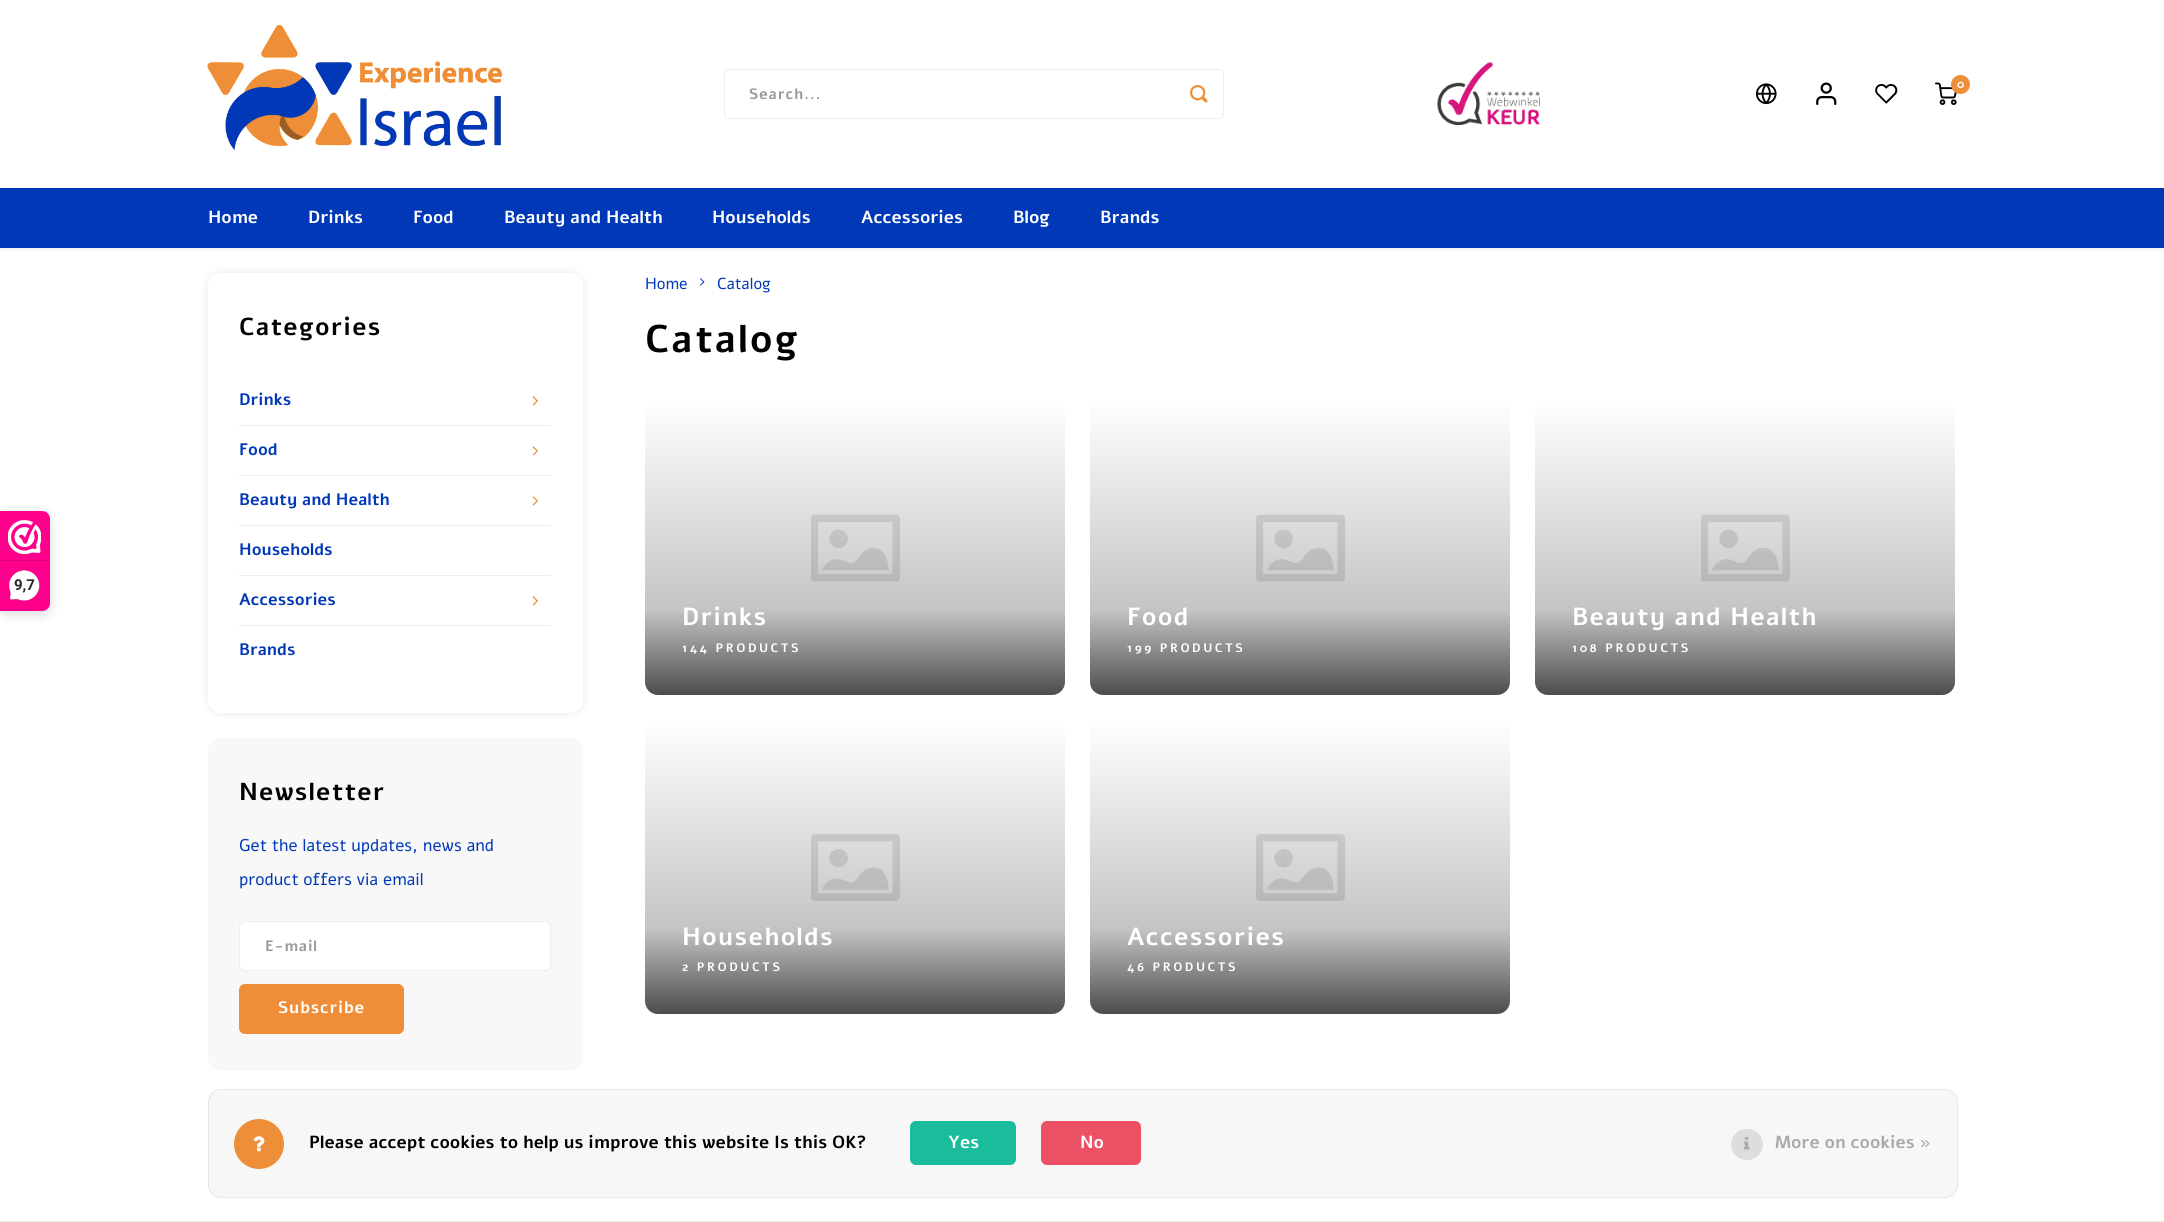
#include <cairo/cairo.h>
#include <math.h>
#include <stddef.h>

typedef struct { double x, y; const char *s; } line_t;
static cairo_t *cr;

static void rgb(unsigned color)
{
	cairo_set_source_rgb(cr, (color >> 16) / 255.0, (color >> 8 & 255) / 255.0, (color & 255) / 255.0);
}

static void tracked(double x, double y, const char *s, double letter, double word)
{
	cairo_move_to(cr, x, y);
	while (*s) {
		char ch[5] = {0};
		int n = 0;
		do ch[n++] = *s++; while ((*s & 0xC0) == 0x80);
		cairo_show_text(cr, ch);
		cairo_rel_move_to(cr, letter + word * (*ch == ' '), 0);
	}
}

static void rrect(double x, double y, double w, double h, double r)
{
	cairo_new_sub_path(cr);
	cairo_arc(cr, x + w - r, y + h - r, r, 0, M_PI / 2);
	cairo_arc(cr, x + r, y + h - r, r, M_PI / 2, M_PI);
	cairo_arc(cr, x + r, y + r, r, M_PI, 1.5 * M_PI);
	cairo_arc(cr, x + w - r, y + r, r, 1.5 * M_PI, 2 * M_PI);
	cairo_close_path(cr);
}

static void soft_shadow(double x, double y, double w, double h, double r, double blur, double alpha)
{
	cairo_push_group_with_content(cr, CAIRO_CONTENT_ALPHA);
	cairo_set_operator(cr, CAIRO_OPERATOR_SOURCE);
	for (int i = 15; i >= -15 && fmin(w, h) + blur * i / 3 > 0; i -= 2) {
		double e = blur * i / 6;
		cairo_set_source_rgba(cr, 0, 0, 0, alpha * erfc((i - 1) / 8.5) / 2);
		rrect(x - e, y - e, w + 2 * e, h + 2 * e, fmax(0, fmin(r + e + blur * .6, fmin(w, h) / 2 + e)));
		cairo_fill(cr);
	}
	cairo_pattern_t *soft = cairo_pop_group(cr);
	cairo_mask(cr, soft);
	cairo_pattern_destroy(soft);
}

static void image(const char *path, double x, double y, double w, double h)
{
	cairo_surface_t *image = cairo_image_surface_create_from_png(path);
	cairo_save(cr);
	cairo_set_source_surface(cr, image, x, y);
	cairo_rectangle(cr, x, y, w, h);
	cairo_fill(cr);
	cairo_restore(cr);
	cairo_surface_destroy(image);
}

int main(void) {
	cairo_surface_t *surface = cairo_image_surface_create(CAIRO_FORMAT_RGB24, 2164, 1222);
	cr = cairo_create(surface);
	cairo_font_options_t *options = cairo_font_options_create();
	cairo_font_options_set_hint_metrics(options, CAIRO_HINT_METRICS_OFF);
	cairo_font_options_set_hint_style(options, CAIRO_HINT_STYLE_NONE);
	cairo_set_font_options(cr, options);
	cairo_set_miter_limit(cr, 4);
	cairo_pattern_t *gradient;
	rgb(0xffffff);
	cairo_paint(cr);
	rgb(0x000000);
	soft_shadow(0, 1, 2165, 248, 0, 2.5, 0.08);
	rgb(0xffffff);
	cairo_rectangle(cr, 0, 0, 2164, 188);
	cairo_fill(cr);
	image("img/1.png", 207, 25, 295, 125);
	image("img/2.png", 1437, 62, 103, 63);
	image("img/3.png", 1755, 83, 22, 22);
	image("img/4.png", 1816, 82, 21, 23);
	image("img/5.png", 1875, 83, 23, 21);
	image("img/6.png", 1935, 82, 22, 23);
	rgb(0xef8e38);
	cairo_arc(cr, 1960.5, 84.5, 9.5, 0, 2 * M_PI);
	cairo_fill(cr);
	rrect(724.5, 69.5, 499, 49, 5.5);
	rgb(0xededed);
	cairo_set_line_width(cr, 1);
	cairo_stroke(cr);
	image("img/7.png", 1190, 85, 18, 18);
	rgb(0x0038b8);
	cairo_rectangle(cr, 0, 189, 2164, 59);
	cairo_fill(cr);
	rgb(0x0034ab);
	cairo_rectangle(cr, 0, 188, 2164, 1);
	cairo_fill(cr);
	rgb(0x000000);
	soft_shadow(0, 514, 50, 100, 8, 6, 0.15);
	rgb(0xfe008c);
	cairo_new_path(cr);
	cairo_move_to(cr, 0, 511);
	cairo_line_to(cr, 42, 511);
	cairo_curve_to(cr, 46.5, 511, 50, 514.5, 50, 519);
	cairo_line_to(cr, 50, 603);
	cairo_curve_to(cr, 50, 607.5, 46.5, 611, 42, 611);
	cairo_line_to(cr, 0, 611);
	cairo_close_path(cr);
	cairo_fill(cr);
	image("img/8.png", 8, 520, 33, 34);
	rgb(0xd80077);
	cairo_rectangle(cr, 0, 560, 49, 1);
	cairo_fill(cr);
	image("img/9.png", 9, 570, 31, 31);
	cairo_save(cr);
	cairo_set_fill_rule(cr, CAIRO_FILL_RULE_EVEN_ODD);
	cairo_new_path(cr);
	cairo_move_to(cr, 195, 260);
	cairo_line_to(cr, 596, 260);
	cairo_line_to(cr, 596, 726);
	cairo_line_to(cr, 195, 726);
	cairo_close_path(cr);
	cairo_move_to(cr, 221, 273);
	cairo_line_to(cr, 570, 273);
	cairo_curve_to(cr, 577, 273, 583, 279, 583, 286);
	cairo_line_to(cr, 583, 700);
	cairo_curve_to(cr, 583, 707, 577, 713, 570, 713);
	cairo_line_to(cr, 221, 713);
	cairo_curve_to(cr, 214, 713, 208, 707, 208, 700);
	cairo_line_to(cr, 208, 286);
	cairo_curve_to(cr, 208, 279, 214, 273, 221, 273);
	cairo_close_path(cr);
	cairo_clip(cr);
	rgb(0x000000);
	soft_shadow(208, 273, 375, 440, 13, 4, 0.1);
	cairo_restore(cr);
	image("img/10.png", 532, 396, 6, 10);
	rgb(0xededed);
	cairo_rectangle(cr, 239, 425, 312, 1);
	cairo_fill(cr);
	image("img/10.png", 532, 446, 6, 10);
	cairo_rectangle(cr, 239, 475, 312, 1);
	cairo_fill(cr);
	image("img/10.png", 532, 496, 6, 10);
	cairo_rectangle(cr, 239, 525, 312, 1);
	cairo_fill(cr);
	cairo_rectangle(cr, 239, 575, 312, 1);
	cairo_fill(cr);
	image("img/10.png", 532, 596, 6, 10);
	cairo_rectangle(cr, 239, 625, 312, 1);
	cairo_fill(cr);
	rgb(0xf8f8f8);
	rrect(208, 738, 375, 333, 13);
	cairo_fill(cr);
	rgb(0xffffff);
	rrect(239.5, 921.5, 311, 49, 5.5);
	cairo_fill_preserve(cr);
	rgb(0xededed);
	cairo_stroke(cr);
	rgb(0xef8e38);
	rrect(239, 984, 165, 50, 6);
	cairo_fill(cr);
	image("img/11.png", 700, 278, 5, 8);
	image("img/12.png", 811, 514, 89, 68);
	gradient = cairo_pattern_create_linear(855, 695, 855, 400);
	cairo_pattern_add_color_stop_rgba(gradient, 0, 0, 0, 0, 0.7);
	cairo_pattern_add_color_stop_rgba(gradient, 0.29, 0, 0, 0, 0.23);
	cairo_pattern_add_color_stop_rgba(gradient, 1, 0, 0, 0, 0);
	cairo_set_source(cr, gradient);
	cairo_pattern_destroy(gradient);
	rrect(645, 400, 420, 295, 13);
	cairo_fill(cr);
	image("img/12.png", 1256, 514, 89, 68);
	gradient = cairo_pattern_create_linear(1300, 695, 1300, 400);
	cairo_pattern_add_color_stop_rgba(gradient, 0, 0, 0, 0, 0.7);
	cairo_pattern_add_color_stop_rgba(gradient, 0.29, 0, 0, 0, 0.23);
	cairo_pattern_add_color_stop_rgba(gradient, 1, 0, 0, 0, 0);
	cairo_set_source(cr, gradient);
	cairo_pattern_destroy(gradient);
	rrect(1090, 400, 420, 295, 13);
	cairo_fill(cr);
	image("img/13.png", 1701, 514, 89, 68);
	gradient = cairo_pattern_create_linear(1745, 695, 1745, 400);
	cairo_pattern_add_color_stop_rgba(gradient, 0, 0, 0, 0, 0.7);
	cairo_pattern_add_color_stop_rgba(gradient, 0.29, 0, 0, 0, 0.23);
	cairo_pattern_add_color_stop_rgba(gradient, 1, 0, 0, 0, 0);
	cairo_set_source(cr, gradient);
	cairo_pattern_destroy(gradient);
	rrect(1535, 400, 420, 295, 13);
	cairo_fill(cr);
	image("img/14.png", 811, 834, 89, 67);
	gradient = cairo_pattern_create_linear(855, 1014, 855, 720);
	cairo_pattern_add_color_stop_rgba(gradient, 0, 0, 0, 0, 0.7);
	cairo_pattern_add_color_stop_rgba(gradient, 0.29, 0, 0, 0, 0.23);
	cairo_pattern_add_color_stop_rgba(gradient, 1, 0, 0, 0, 0);
	cairo_set_source(cr, gradient);
	cairo_pattern_destroy(gradient);
	rrect(645, 720, 420, 294, 13);
	cairo_fill(cr);
	image("img/14.png", 1256, 834, 89, 67);
	gradient = cairo_pattern_create_linear(1300, 1014, 1300, 720);
	cairo_pattern_add_color_stop_rgba(gradient, 0, 0, 0, 0, 0.7);
	cairo_pattern_add_color_stop_rgba(gradient, 0.29, 0, 0, 0, 0.23);
	cairo_pattern_add_color_stop_rgba(gradient, 1, 0, 0, 0, 0);
	cairo_set_source(cr, gradient);
	cairo_pattern_destroy(gradient);
	rrect(1090, 720, 420, 294, 13);
	cairo_fill(cr);
	rgb(0xf7f7f7);
	rrect(208, 1089, 1750, 109, 13);
	cairo_fill(cr);
	rrect(208.5, 1089.5, 1749, 108, 12.5);
	cairo_set_source_rgba(cr, 0, 0, 0, 0.07);
	cairo_stroke(cr);
	rgb(0xef8e38);
	cairo_arc(cr, 259, 1144, 25, 0, 2 * M_PI);
	cairo_fill(cr);
	image("img/15.png", 253, 1136, 12, 16);
	rgb(0x1abc9c);
	rrect(910, 1121, 106, 44, 6);
	cairo_fill(cr);
	rgb(0xeb5265);
	rrect(1041, 1121, 100, 44, 6);
	cairo_fill(cr);
	rgb(0xdddddd);
	rrect(1731, 1129, 32, 31, 15.5);
	cairo_fill(cr);
	image("img/16.png", 1743, 1137, 7, 13);
	rgb(0xededed);
	cairo_rectangle(cr, 0, 1221, 2164, 1);
	cairo_fill(cr);
	cairo_select_font_face(cr, "Alef", CAIRO_FONT_SLANT_NORMAL, CAIRO_FONT_WEIGHT_BOLD);
	cairo_set_font_size(cr, 12);
	rgb(0xffffff);
	cairo_move_to(cr, 1957, 88);
	cairo_show_text(cr, "0");
	cairo_set_font_size(cr, 15);
	rgb(0x999999);
	tracked(749, 99, "Search...", 0.75, 0);
	cairo_set_font_size(cr, 17.5);
	rgb(0xffffff);
	{
		static const line_t items[] = {
			{208, 223, "Home"},
			{308, 223, "Drinks"},
			{413, 223, "Food"},
			{504, 223, "Beauty and Health"},
			{712, 223, "Households"},
			{861, 223, "Accessories"},
			{1013, 223, "Blog"},
			{1100, 223, "Brands"},
		};
		for (size_t i = 0; i < sizeof items / sizeof *items; i++) {
			cairo_move_to(cr, items[i].x, items[i].y);
			cairo_show_text(cr, items[i].s);
		}
	}
	cairo_select_font_face(cr, "Roboto", CAIRO_FONT_SLANT_NORMAL, CAIRO_FONT_WEIGHT_BOLD);
	cairo_set_font_size(cr, 15);
	rgb(0x272626);
	cairo_move_to(cr, 14, 590);
	cairo_show_text(cr, "9,7");
	cairo_select_font_face(cr, "Alef", CAIRO_FONT_SLANT_NORMAL, CAIRO_FONT_WEIGHT_BOLD);
	cairo_set_font_size(cr, 24.5);
	rgb(0x000000);
	tracked(239, 335, "Categories", 1.25, 0);
	cairo_set_font_size(cr, 16.6);
	rgb(0x0038b8);
	{
		static const line_t items[] = {
			{239, 405, "Drinks"},
			{239, 455, "Food"},
			{239, 505, "Beauty and Health"},
			{239, 555, "Households"},
			{239, 605, "Accessories"},
			{239, 655, "Brands"},
		};
		for (size_t i = 0; i < sizeof items / sizeof *items; i++) {
			cairo_move_to(cr, items[i].x, items[i].y);
			cairo_show_text(cr, items[i].s);
		}
	}
	cairo_set_font_size(cr, 24.5);
	rgb(0x000000);
	tracked(239, 800, "Newsletter", 1.25, 0);
	cairo_select_font_face(cr, "Alef", CAIRO_FONT_SLANT_NORMAL, CAIRO_FONT_WEIGHT_NORMAL);
	cairo_set_font_size(cr, 17);
	rgb(0x0038b8);
	cairo_move_to(cr, 239, 851);
	cairo_show_text(cr, "Get the latest updates, news and");
	cairo_move_to(cr, 239, 885);
	cairo_show_text(cr, "product offers via email");
	cairo_select_font_face(cr, "Alef", CAIRO_FONT_SLANT_NORMAL, CAIRO_FONT_WEIGHT_BOLD);
	cairo_set_font_size(cr, 15);
	rgb(0x999999);
	tracked(265, 951, "E-mail", 0.75, 0);
	cairo_set_font_size(cr, 16.6);
	rgb(0xffffff);
	tracked(278, 1013, "Subscribe", 0.75, 0);
	cairo_select_font_face(cr, "Alef", CAIRO_FONT_SLANT_NORMAL, CAIRO_FONT_WEIGHT_NORMAL);
	cairo_set_font_size(cr, 16);
	rgb(0x0038b8);
	cairo_move_to(cr, 645, 289);
	cairo_show_text(cr, "Home");
	cairo_move_to(cr, 717, 289);
	cairo_show_text(cr, "Catalog");
	cairo_select_font_face(cr, "Alef", CAIRO_FONT_SLANT_NORMAL, CAIRO_FONT_WEIGHT_BOLD);
	cairo_set_font_size(cr, 38.5);
	rgb(0x000000);
	tracked(645, 352, "Catalog", 2, 0);
	cairo_set_font_size(cr, 24.75);
	rgb(0xffffff);
	tracked(682, 625, "Drinks", 1.25, 0);
	cairo_set_font_size(cr, 12.25);
	tracked(682, 652, "144 PRODUCTS", 2.5, 0);
	cairo_set_font_size(cr, 24.75);
	tracked(1127, 625, "Food", 1.25, 0);
	cairo_set_font_size(cr, 12.25);
	tracked(1127, 652, "199 PRODUCTS", 2.5, 0);
	cairo_set_font_size(cr, 24.75);
	tracked(1572, 625, "Beauty and Health", 1.25, 0);
	cairo_set_font_size(cr, 12.25);
	tracked(1572, 652, "108 PRODUCTS", 2.5, 0);
	cairo_set_font_size(cr, 24.75);
	tracked(682, 945, "Households", 1.25, 0);
	cairo_set_font_size(cr, 12.25);
	tracked(682, 971, "2 PRODUCTS", 2.5, 0);
	cairo_set_font_size(cr, 24.75);
	tracked(1127, 945, "Accessories", 1.25, 0);
	cairo_set_font_size(cr, 12.25);
	tracked(1127, 971, "46 PRODUCTS", 2.5, 0);
	cairo_set_font_size(cr, 17.5);
	rgb(0x000000);
	cairo_move_to(cr, 309, 1148);
	cairo_show_text(cr, "Please accept cookies to help us improve this website Is this OK?");
	rgb(0xffffff);
	cairo_move_to(cr, 948, 1148);
	cairo_show_text(cr, "Yes");
	cairo_move_to(cr, 1080, 1148);
	cairo_show_text(cr, "No");
	rgb(0xaaaaaa);
	cairo_move_to(cr, 1775, 1148);
	cairo_show_text(cr, "More on cookies »");
	cairo_surface_write_to_png(surface, "page.png");
	cairo_font_options_destroy(options);
	cairo_destroy(cr);
	cairo_surface_destroy(surface);
	return 0;
}
